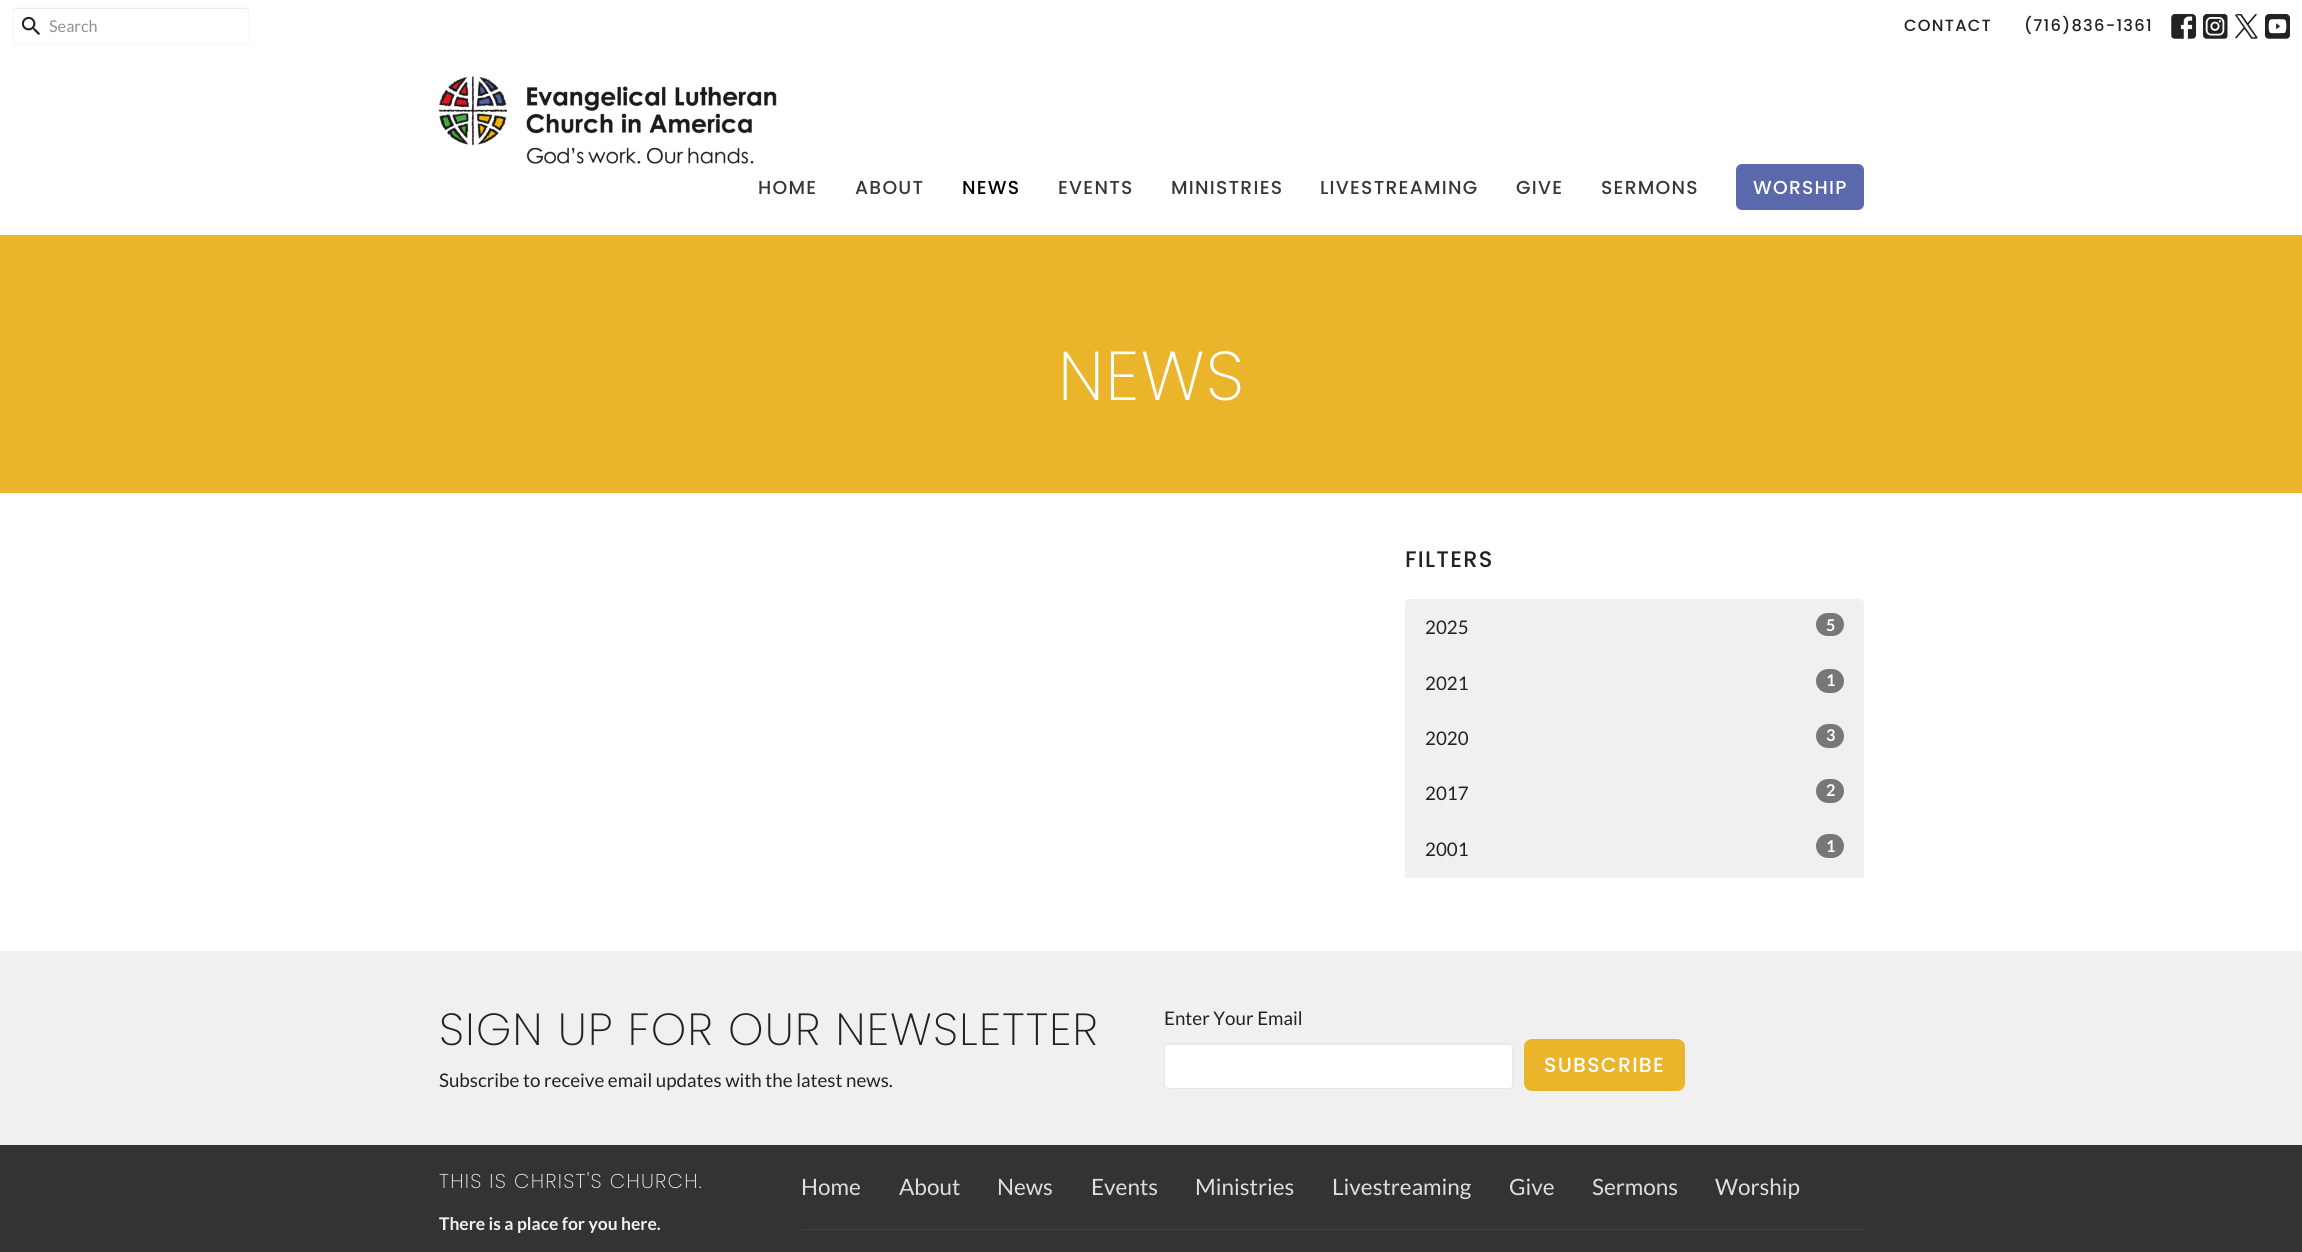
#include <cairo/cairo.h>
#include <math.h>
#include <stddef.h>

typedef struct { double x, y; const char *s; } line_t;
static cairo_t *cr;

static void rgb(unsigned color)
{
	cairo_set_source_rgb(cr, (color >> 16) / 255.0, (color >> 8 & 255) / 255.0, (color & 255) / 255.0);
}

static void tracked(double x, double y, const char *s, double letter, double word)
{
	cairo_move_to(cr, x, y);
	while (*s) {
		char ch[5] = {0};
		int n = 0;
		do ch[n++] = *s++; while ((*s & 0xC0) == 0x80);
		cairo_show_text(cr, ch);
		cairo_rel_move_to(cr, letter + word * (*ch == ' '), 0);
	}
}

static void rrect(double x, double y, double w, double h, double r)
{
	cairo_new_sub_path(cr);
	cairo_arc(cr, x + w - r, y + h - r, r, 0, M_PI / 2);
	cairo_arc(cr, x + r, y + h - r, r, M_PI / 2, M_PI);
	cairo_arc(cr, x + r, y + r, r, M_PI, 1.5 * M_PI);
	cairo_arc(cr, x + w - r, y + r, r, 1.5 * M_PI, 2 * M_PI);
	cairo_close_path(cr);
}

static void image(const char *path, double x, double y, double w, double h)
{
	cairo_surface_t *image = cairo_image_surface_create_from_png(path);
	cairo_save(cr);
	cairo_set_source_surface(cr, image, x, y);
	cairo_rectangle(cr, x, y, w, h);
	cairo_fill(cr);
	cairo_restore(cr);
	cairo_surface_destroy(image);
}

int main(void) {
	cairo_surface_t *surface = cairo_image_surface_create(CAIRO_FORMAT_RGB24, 2302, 1252);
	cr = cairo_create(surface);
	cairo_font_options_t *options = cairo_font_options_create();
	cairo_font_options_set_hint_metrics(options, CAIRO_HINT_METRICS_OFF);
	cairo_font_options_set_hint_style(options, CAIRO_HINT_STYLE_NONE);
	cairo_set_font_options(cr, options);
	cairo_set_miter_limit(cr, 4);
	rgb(0xffffff);
	cairo_paint(cr);
	rgb(0xececec);
	cairo_new_path(cr);
	cairo_move_to(cr, 16, 9);
	cairo_line_to(cr, 245, 9);
	cairo_curve_to(cr, 246, 9, 248, 10, 248, 11);
	cairo_curve_to(cr, 248, 9, 247, 8, 246, 8);
	cairo_line_to(cr, 16, 8);
	cairo_line_to(cr, 14, 9);
	cairo_line_to(cr, 14, 11);
	cairo_curve_to(cr, 14, 10, 15, 9, 16, 9);
	cairo_close_path(cr);
	cairo_fill(cr);
	rrect(13.5, 6.5, 235, 38, 3.5);
	rgb(0xf7f7f7);
	cairo_set_line_width(cr, 1);
	cairo_stroke(cr);
	image("img/1.png", 21, 16, 19, 19);
	image("img/2.png", 2171, 14, 25, 25);
	image("img/3.png", 2203, 14, 25, 25);
	image("img/4.png", 2235, 14, 23, 25);
	image("img/5.png", 2265, 14, 25, 25);
	image("img/6.png", 438, 76, 339, 88);
	rgb(0x5969ab);
	rrect(1736, 164, 128, 46, 6);
	cairo_fill(cr);
	rgb(0xeab42b);
	cairo_rectangle(cr, 0, 235, 2302, 258);
	cairo_fill(cr);
	rgb(0xf0f0f0);
	cairo_new_path(cr);
	cairo_move_to(cr, 1410, 599);
	cairo_line_to(cr, 1859, 599);
	cairo_curve_to(cr, 1862, 599, 1864, 601, 1864, 604);
	cairo_line_to(cr, 1864, 656);
	cairo_line_to(cr, 1405, 656);
	cairo_line_to(cr, 1405, 604);
	cairo_curve_to(cr, 1405, 601, 1407, 599, 1410, 599);
	cairo_close_path(cr);
	cairo_fill(cr);
	rgb(0x777777);
	rrect(1816, 613, 28, 23, 11.5);
	cairo_fill(cr);
	rgb(0xf0f0f0);
	cairo_rectangle(cr, 1405, 656, 459, 222);
	cairo_fill(cr);
	rgb(0x777777);
	rrect(1816, 669, 28, 24, 12);
	cairo_fill(cr);
	rrect(1816, 724, 28, 24, 12);
	cairo_fill(cr);
	rrect(1816, 779, 28, 24, 12);
	cairo_fill(cr);
	rrect(1816, 834, 28, 24, 12);
	cairo_fill(cr);
	rgb(0xf0f0f0);
	cairo_rectangle(cr, 0, 951, 2302, 194);
	cairo_fill(cr);
	rgb(0xffffff);
	rrect(1164, 1043, 350, 46, 5);
	cairo_fill(cr);
	rgb(0xececec);
	cairo_new_path(cr);
	cairo_move_to(cr, 1169, 1045);
	cairo_line_to(cr, 1509, 1045);
	cairo_curve_to(cr, 1511, 1045, 1512, 1047, 1512, 1049);
	cairo_line_to(cr, 1512, 1087);
	cairo_curve_to(cr, 1512, 1086, 1513, 1085, 1513, 1084);
	cairo_line_to(cr, 1513, 1048);
	cairo_curve_to(cr, 1513, 1046, 1511, 1044, 1509, 1044);
	cairo_line_to(cr, 1169, 1044);
	cairo_curve_to(cr, 1167, 1044, 1165, 1046, 1165, 1048);
	cairo_line_to(cr, 1165, 1049);
	cairo_curve_to(cr, 1165, 1047, 1167, 1045, 1169, 1045);
	cairo_close_path(cr);
	cairo_fill(cr);
	rrect(1164.5, 1043.5, 349, 45, 4.5);
	rgb(0xe6e6e6);
	cairo_stroke(cr);
	rgb(0xeab42b);
	rrect(1524, 1039, 161, 52, 8);
	cairo_fill(cr);
	rgb(0x333333);
	cairo_rectangle(cr, 0, 1145, 2302, 107);
	cairo_fill(cr);
	rgb(0x424242);
	cairo_rectangle(cr, 801, 1229, 1063, 1);
	cairo_fill(cr);
	cairo_select_font_face(cr, "Lato", CAIRO_FONT_SLANT_NORMAL, CAIRO_FONT_WEIGHT_NORMAL);
	cairo_set_font_size(cr, 16.25);
	rgb(0x919191);
	cairo_move_to(cr, 49, 32);
	cairo_show_text(cr, "Search");
	cairo_select_font_face(cr, "Poppins Medium", CAIRO_FONT_SLANT_NORMAL, CAIRO_FONT_WEIGHT_NORMAL);
	rgb(0x222222);
	tracked(1904, 31, "CONTACT", 1.25, 0);
	tracked(2024, 31, "(716)836-1361", 1.25, 0);
	cairo_set_font_size(cr, 18.75);
	rgb(0x383838);
	tracked(758, 194, "HOME", 1.25, 0);
	tracked(855, 194, "ABOUT", 1.25, 0);
	rgb(0x000000);
	tracked(962, 194, "NEWS", 1.25, 0);
	rgb(0x383838);
	{
		static const line_t items[] = {
			{1058, 194, "EVENTS"},
			{1171, 194, "MINISTRIES"},
			{1320, 194, "LIVESTREAMING"},
			{1516, 194, "GIVE"},
			{1601, 194, "SERMONS"},
		};
		for (size_t i = 0; i < sizeof items / sizeof *items; i++) {
			tracked(items[i].x, items[i].y, items[i].s, 1.25, 0);
		}
	}
	rgb(0xffffff);
	tracked(1753, 194, "WORSHIP", 1.25, 0);
	cairo_select_font_face(cr, "Poppins ExtraLight", CAIRO_FONT_SLANT_NORMAL, CAIRO_FONT_WEIGHT_NORMAL);
	cairo_set_font_size(cr, 69);
	tracked(1058, 400, "NEWS", 1.25, 0);
	cairo_select_font_face(cr, "Poppins Medium", CAIRO_FONT_SLANT_NORMAL, CAIRO_FONT_WEIGHT_NORMAL);
	cairo_set_font_size(cr, 22.5);
	rgb(0x222222);
	tracked(1405, 567, "FILTERS", 1.25, 0);
	cairo_select_font_face(cr, "Lato", CAIRO_FONT_SLANT_NORMAL, CAIRO_FONT_WEIGHT_NORMAL);
	cairo_set_font_size(cr, 18.75);
	cairo_move_to(cr, 1425, 634);
	cairo_show_text(cr, "2025");
	cairo_select_font_face(cr, "Lato", CAIRO_FONT_SLANT_NORMAL, CAIRO_FONT_WEIGHT_BOLD);
	cairo_set_font_size(cr, 16.25);
	rgb(0xffffff);
	cairo_move_to(cr, 1826, 631);
	cairo_show_text(cr, "5");
	cairo_select_font_face(cr, "Lato", CAIRO_FONT_SLANT_NORMAL, CAIRO_FONT_WEIGHT_NORMAL);
	cairo_set_font_size(cr, 18.75);
	rgb(0x222222);
	cairo_move_to(cr, 1425, 690);
	cairo_show_text(cr, "2021");
	cairo_select_font_face(cr, "Lato", CAIRO_FONT_SLANT_NORMAL, CAIRO_FONT_WEIGHT_BOLD);
	cairo_set_font_size(cr, 16.25);
	rgb(0xffffff);
	cairo_move_to(cr, 1826, 686);
	cairo_show_text(cr, "1");
	cairo_select_font_face(cr, "Lato", CAIRO_FONT_SLANT_NORMAL, CAIRO_FONT_WEIGHT_NORMAL);
	cairo_set_font_size(cr, 18.75);
	rgb(0x222222);
	cairo_move_to(cr, 1425, 745);
	cairo_show_text(cr, "2020");
	cairo_select_font_face(cr, "Lato", CAIRO_FONT_SLANT_NORMAL, CAIRO_FONT_WEIGHT_BOLD);
	cairo_set_font_size(cr, 16.25);
	rgb(0xffffff);
	cairo_move_to(cr, 1826, 741);
	cairo_show_text(cr, "3");
	cairo_select_font_face(cr, "Lato", CAIRO_FONT_SLANT_NORMAL, CAIRO_FONT_WEIGHT_NORMAL);
	cairo_set_font_size(cr, 18.75);
	rgb(0x222222);
	cairo_move_to(cr, 1425, 800);
	cairo_show_text(cr, "2017");
	cairo_select_font_face(cr, "Lato", CAIRO_FONT_SLANT_NORMAL, CAIRO_FONT_WEIGHT_BOLD);
	cairo_set_font_size(cr, 16.25);
	rgb(0xffffff);
	cairo_move_to(cr, 1826, 796);
	cairo_show_text(cr, "2");
	cairo_select_font_face(cr, "Lato", CAIRO_FONT_SLANT_NORMAL, CAIRO_FONT_WEIGHT_NORMAL);
	cairo_set_font_size(cr, 18.75);
	rgb(0x222222);
	cairo_move_to(cr, 1425, 856);
	cairo_show_text(cr, "2001");
	cairo_select_font_face(cr, "Lato", CAIRO_FONT_SLANT_NORMAL, CAIRO_FONT_WEIGHT_BOLD);
	cairo_set_font_size(cr, 16.25);
	rgb(0xffffff);
	cairo_move_to(cr, 1826, 852);
	cairo_show_text(cr, "1");
	cairo_select_font_face(cr, "Poppins ExtraLight", CAIRO_FONT_SLANT_NORMAL, CAIRO_FONT_WEIGHT_NORMAL);
	cairo_set_font_size(cr, 45);
	rgb(0x222222);
	tracked(439, 1045, "SIGN UP FOR OUR NEWSLETTER", 1.25, 0);
	cairo_select_font_face(cr, "Lato", CAIRO_FONT_SLANT_NORMAL, CAIRO_FONT_WEIGHT_NORMAL);
	cairo_set_font_size(cr, 18.75);
	cairo_move_to(cr, 439, 1087);
	cairo_show_text(cr, "Subscribe to receive email updates with the latest news.");
	cairo_move_to(cr, 1164, 1025);
	cairo_show_text(cr, "Enter Your Email");
	cairo_select_font_face(cr, "Poppins Medium", CAIRO_FONT_SLANT_NORMAL, CAIRO_FONT_WEIGHT_NORMAL);
	cairo_set_font_size(cr, 20.5);
	rgb(0xffffff);
	tracked(1544, 1072, "SUBSCRIBE", 1.25, 0);
	cairo_select_font_face(cr, "Poppins ExtraLight", CAIRO_FONT_SLANT_NORMAL, CAIRO_FONT_WEIGHT_NORMAL);
	cairo_set_font_size(cr, 20);
	rgb(0xf1f1f1);
	tracked(439, 1188, "THIS IS CHRIST'S CHURCH.", 1.25, 0);
	cairo_select_font_face(cr, "Lato", CAIRO_FONT_SLANT_NORMAL, CAIRO_FONT_WEIGHT_BOLD);
	cairo_set_font_size(cr, 17.5);
	cairo_move_to(cr, 439, 1230);
	cairo_show_text(cr, "There is a place for you here.");
	cairo_select_font_face(cr, "Lato", CAIRO_FONT_SLANT_NORMAL, CAIRO_FONT_WEIGHT_NORMAL);
	cairo_set_font_size(cr, 22.5);
	rgb(0xdedede);
	{
		static const line_t items[] = {
			{801, 1195, "Home"},
			{899, 1195, "About"},
			{997, 1195, "News"},
			{1091, 1195, "Events"},
			{1195, 1195, "Ministries"},
			{1332, 1195, "Livestreaming"},
			{1509, 1195, "Give"},
			{1592, 1195, "Sermons"},
			{1715, 1195, "Worship"},
		};
		for (size_t i = 0; i < sizeof items / sizeof *items; i++) {
			cairo_move_to(cr, items[i].x, items[i].y);
			cairo_show_text(cr, items[i].s);
		}
	}
	cairo_surface_write_to_png(surface, "page.png");
	cairo_font_options_destroy(options);
	cairo_destroy(cr);
	cairo_surface_destroy(surface);
	return 0;
}
